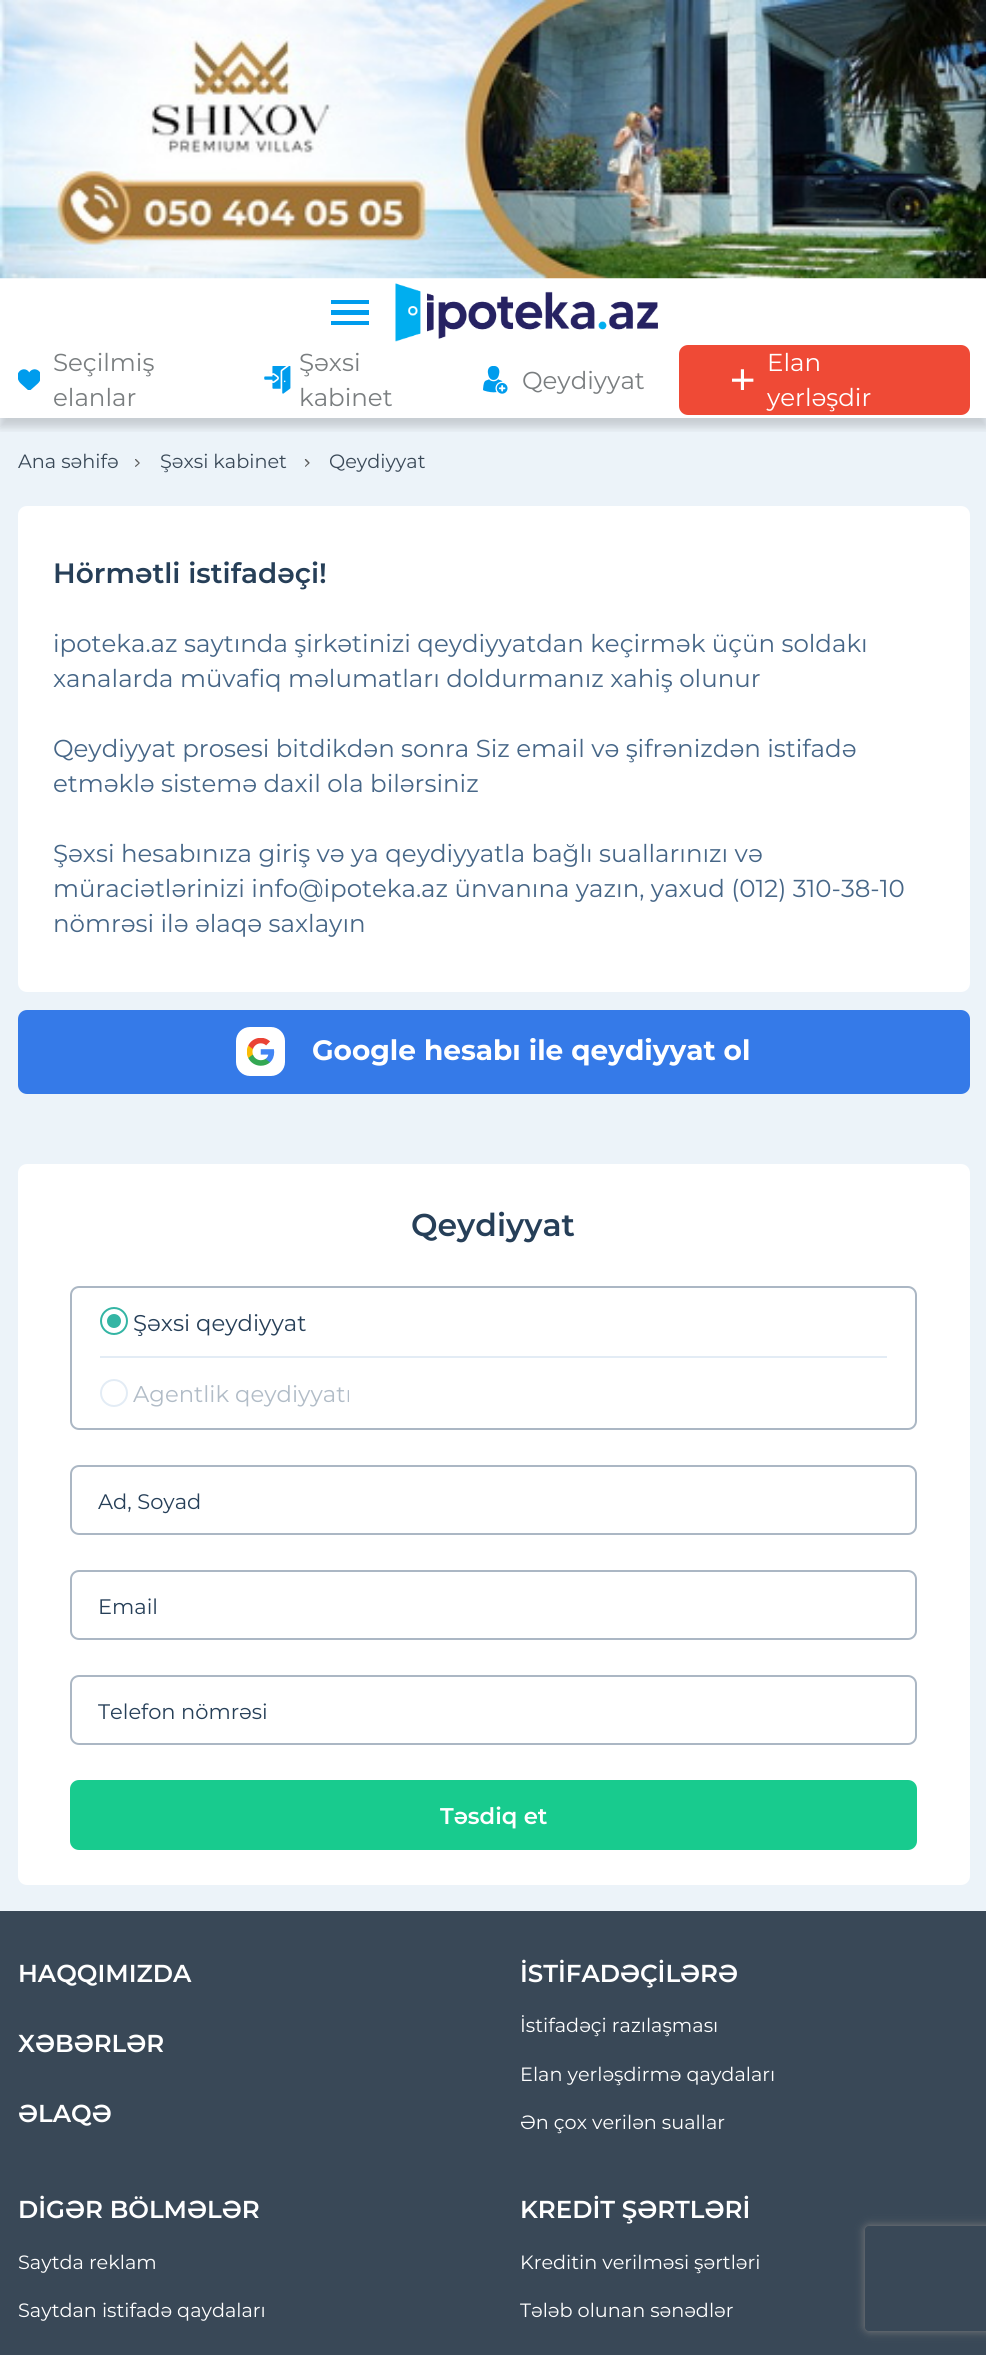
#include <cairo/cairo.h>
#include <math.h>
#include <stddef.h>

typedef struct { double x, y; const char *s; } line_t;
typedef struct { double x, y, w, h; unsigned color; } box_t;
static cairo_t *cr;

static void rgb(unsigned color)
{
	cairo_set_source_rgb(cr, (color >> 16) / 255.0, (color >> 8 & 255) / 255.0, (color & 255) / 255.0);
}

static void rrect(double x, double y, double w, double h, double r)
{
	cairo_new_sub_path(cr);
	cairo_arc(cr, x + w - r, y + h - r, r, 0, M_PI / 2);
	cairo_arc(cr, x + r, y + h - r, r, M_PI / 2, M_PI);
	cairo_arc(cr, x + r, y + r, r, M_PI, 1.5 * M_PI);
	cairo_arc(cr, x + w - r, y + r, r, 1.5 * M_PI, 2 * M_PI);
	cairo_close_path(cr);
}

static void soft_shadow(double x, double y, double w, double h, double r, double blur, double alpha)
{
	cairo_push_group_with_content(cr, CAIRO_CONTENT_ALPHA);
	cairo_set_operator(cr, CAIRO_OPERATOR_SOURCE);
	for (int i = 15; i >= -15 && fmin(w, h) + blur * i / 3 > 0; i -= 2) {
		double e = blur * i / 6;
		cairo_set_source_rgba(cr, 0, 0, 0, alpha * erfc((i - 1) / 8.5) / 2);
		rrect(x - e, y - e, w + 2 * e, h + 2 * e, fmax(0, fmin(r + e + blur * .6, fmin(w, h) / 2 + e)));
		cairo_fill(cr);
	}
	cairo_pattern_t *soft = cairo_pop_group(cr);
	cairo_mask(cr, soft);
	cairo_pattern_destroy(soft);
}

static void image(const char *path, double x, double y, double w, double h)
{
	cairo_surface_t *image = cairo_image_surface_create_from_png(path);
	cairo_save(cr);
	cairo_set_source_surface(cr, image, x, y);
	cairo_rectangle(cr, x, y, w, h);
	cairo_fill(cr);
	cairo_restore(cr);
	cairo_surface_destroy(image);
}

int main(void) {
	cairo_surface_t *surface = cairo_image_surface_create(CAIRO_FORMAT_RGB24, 986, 2355);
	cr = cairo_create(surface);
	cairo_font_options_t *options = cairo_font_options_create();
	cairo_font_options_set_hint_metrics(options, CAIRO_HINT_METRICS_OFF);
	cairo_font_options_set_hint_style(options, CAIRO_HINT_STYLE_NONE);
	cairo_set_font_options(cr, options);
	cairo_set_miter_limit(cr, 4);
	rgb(0xecf3f9);
	cairo_paint(cr);
	rgb(0xffffff);
	cairo_rectangle(cr, 0, 278, 986, 140);
	cairo_fill(cr);
	cairo_save(cr);
	cairo_rectangle(cr, 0, 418, 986, 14);
	cairo_clip(cr);
	rgb(0x000000);
	soft_shadow(0, 287, 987, 140, 0, 4.5, 0.16);
	cairo_restore(cr);
	image("img/1.png", 0, 0, 986, 279);
	{
		static const box_t items[] = {
			{331, 321, 38, 4, 0x009ced},
			{331, 310, 38, 5, 0x009ced},
			{331, 300, 38, 4, 0x009ced},
		};
		for (size_t i = 0; i < sizeof items / sizeof *items; i++) {
			rgb(items[i].color);
			cairo_rectangle(cr, items[i].x, items[i].y, items[i].w, items[i].h);
			cairo_fill(cr);
		}
	}
	image("img/2.png", 395, 283, 263, 59);
	image("img/3.png", 18, 369, 22, 21);
	image("img/4.png", 264, 366, 27, 28);
	image("img/5.png", 483, 366, 25, 28);
	rgb(0xef4a36);
	rrect(679, 345, 291, 70, 9);
	cairo_fill(cr);
	image("img/6.png", 732, 369, 22, 21);
	rgb(0x5b5b5b);
	cairo_new_path(cr);
	cairo_move_to(cr, 139.5, 462.5);
	cairo_line_to(cr, 136, 459);
	cairo_line_to(cr, 135, 459);
	cairo_curve_to(cr, 134.5, 460, 137.5, 462.5, 138.5, 463);
	cairo_line_to(cr, 135, 466);
	cairo_line_to(cr, 135, 466.5);
	cairo_curve_to(cr, 135.5, 468, 137.5, 465, 138, 465);
	cairo_curve_to(cr, 138, 464.5, 140.5, 463.5, 139.5, 462.5);
	cairo_close_path(cr);
	cairo_fill(cr);
	cairo_new_path(cr);
	cairo_move_to(cr, 309.5, 462.5);
	cairo_line_to(cr, 306, 459);
	cairo_line_to(cr, 305, 459);
	cairo_curve_to(cr, 304, 460, 307.5, 462.5, 308, 463);
	cairo_line_to(cr, 305, 466);
	cairo_line_to(cr, 305, 466.5);
	cairo_curve_to(cr, 305, 468, 307.5, 465, 307.5, 465);
	cairo_curve_to(cr, 308, 464.5, 310, 463.5, 309.5, 462.5);
	cairo_close_path(cr);
	cairo_fill(cr);
	rgb(0xffffff);
	rrect(18, 506, 952, 486, 9);
	cairo_fill(cr);
	rgb(0x357ae8);
	rrect(18, 1010, 952, 84, 9);
	cairo_fill(cr);
	rgb(0xffffff);
	rrect(236, 1027, 49, 49, 14);
	cairo_fill(cr);
	image("img/7.png", 247, 1038, 28, 28);
	rrect(18, 1164, 952, 721, 9);
	cairo_fill(cr);
	rrect(71, 1287, 845, 142, 8);
	rgb(0xabb7c4);
	cairo_stroke(cr);
	rgb(0xe3ecf5);
	cairo_rectangle(cr, 100, 1356, 787, 2);
	cairo_fill(cr);
	cairo_arc(cr, 114, 1321, 13, 0, 2 * M_PI);
	rgb(0x34b5a4);
	cairo_stroke(cr);
	cairo_arc(cr, 114, 1321, 7, 0, 2 * M_PI);
	cairo_fill(cr);
	cairo_arc(cr, 114, 1393, 13, 0, 2 * M_PI);
	rgb(0xe3ecf5);
	cairo_stroke(cr);
	rrect(71, 1466, 845, 68, 8);
	rgb(0xabb7c4);
	cairo_stroke(cr);
	rrect(71, 1571, 845, 68, 8);
	cairo_stroke(cr);
	rrect(71, 1676, 845, 68, 8);
	cairo_stroke(cr);
	rgb(0x18cb8e);
	rrect(70, 1780, 847, 70, 9);
	cairo_fill(cr);
	rgb(0x394857);
	cairo_rectangle(cr, 0, 1911, 986, 444);
	cairo_fill(cr);
	cairo_save(cr);
	cairo_set_fill_rule(cr, CAIRO_FILL_RULE_EVEN_ODD);
	cairo_new_path(cr);
	cairo_move_to(cr, 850, 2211);
	cairo_line_to(cr, 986, 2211);
	cairo_line_to(cr, 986, 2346);
	cairo_line_to(cr, 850, 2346);
	cairo_close_path(cr);
	cairo_move_to(cr, 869, 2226);
	cairo_line_to(cr, 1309, 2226);
	cairo_curve_to(cr, 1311, 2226, 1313, 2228, 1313, 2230);
	cairo_line_to(cr, 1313, 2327);
	cairo_curve_to(cr, 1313, 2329, 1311, 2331, 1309, 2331);
	cairo_line_to(cr, 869, 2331);
	cairo_curve_to(cr, 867, 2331, 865, 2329, 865, 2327);
	cairo_line_to(cr, 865, 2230);
	cairo_curve_to(cr, 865, 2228, 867, 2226, 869, 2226);
	cairo_close_path(cr);
	cairo_clip(cr);
	rgb(0x808080);
	soft_shadow(865, 2226, 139, 105, 4, 4.5, 1);
	cairo_restore(cr);
	cairo_select_font_face(cr, "Montserrat", CAIRO_FONT_SLANT_NORMAL, CAIRO_FONT_WEIGHT_NORMAL);
	cairo_set_font_size(cr, 24.5);
	rgb(0x7a7e80);
	{
		static const line_t items[] = {
			{53, 371, "Seçilmiş"},
			{53, 406, "elanlar"},
			{299, 371, "Şəxsi"},
			{299, 406, "kabinet"},
			{522, 389, "Qeydiyyat"},
		};
		for (size_t i = 0; i < sizeof items / sizeof *items; i++) {
			cairo_move_to(cr, items[i].x, items[i].y);
			cairo_show_text(cr, items[i].s);
		}
	}
	rgb(0xffffff);
	cairo_move_to(cr, 767, 371);
	cairo_show_text(cr, "Elan");
	cairo_move_to(cr, 767, 406);
	cairo_show_text(cr, "yerləşdir");
	cairo_set_font_size(cr, 19.25);
	rgb(0x394857);
	{
		static const line_t items[] = {
			{18, 468, "Ana səhifə"},
			{160, 468, "Şəxsi kabinet"},
			{329, 468, "Qeydiyyat"},
		};
		for (size_t i = 0; i < sizeof items / sizeof *items; i++) {
			cairo_move_to(cr, items[i].x, items[i].y);
			cairo_show_text(cr, items[i].s);
		}
	}
	cairo_select_font_face(cr, "Montserrat SemiBold", CAIRO_FONT_SLANT_NORMAL, CAIRO_FONT_WEIGHT_NORMAL);
	cairo_set_font_size(cr, 28);
	rgb(0x263f58);
	cairo_move_to(cr, 53, 583);
	cairo_show_text(cr, "Hörmətli istifadəçi!");
	cairo_select_font_face(cr, "Montserrat", CAIRO_FONT_SLANT_NORMAL, CAIRO_FONT_WEIGHT_NORMAL);
	cairo_set_font_size(cr, 24.5);
	rgb(0x466687);
	{
		static const line_t items[] = {
			{53, 652, "ipoteka.az saytında şirkətinizi qeydiyyatdan keçirmək üçün soldakı"},
			{53, 687, "xanalarda müvafiq məlumatları doldurmanız xahiş olunur"},
			{53, 757, "Qeydiyyat prosesi bitdikdən sonra Siz email və şifrənizdən istifadə"},
			{53, 792, "etməklə sistemə daxil ola bilərsiniz"},
			{53, 862, "Şəxsi hesabınıza giriş və ya qeydiyyatla bağlı suallarınızı və"},
			{53, 897, "müraciətlərinizi info@ipoteka.az ünvanına yazın, yaxud (012) 310-38-10"},
			{53, 932, "nömrəsi ilə əlaqə saxlayın"},
		};
		for (size_t i = 0; i < sizeof items / sizeof *items; i++) {
			cairo_move_to(cr, items[i].x, items[i].y);
			cairo_show_text(cr, items[i].s);
		}
	}
	cairo_select_font_face(cr, "Montserrat", CAIRO_FONT_SLANT_NORMAL, CAIRO_FONT_WEIGHT_BOLD);
	cairo_set_font_size(cr, 28);
	rgb(0xffffff);
	cairo_move_to(cr, 312, 1060);
	cairo_show_text(cr, "Google hesabı ile qeydiyyat ol");
	cairo_select_font_face(cr, "Montserrat SemiBold", CAIRO_FONT_SLANT_NORMAL, CAIRO_FONT_WEIGHT_NORMAL);
	cairo_set_font_size(cr, 31.5);
	rgb(0x263f58);
	cairo_move_to(cr, 411, 1236);
	cairo_show_text(cr, "Qeydiyyat");
	cairo_select_font_face(cr, "Montserrat", CAIRO_FONT_SLANT_NORMAL, CAIRO_FONT_WEIGHT_NORMAL);
	cairo_set_font_size(cr, 22.75);
	cairo_move_to(cr, 133, 1331);
	cairo_show_text(cr, "Şəxsi qeydiyyat");
	rgb(0xb1bcc7);
	cairo_move_to(cr, 133, 1402);
	cairo_show_text(cr, "Agentlik qeydiyyatı");
	cairo_set_font_size(cr, 21);
	rgb(0x263f58);
	{
		static const line_t items[] = {
			{98, 1509, "Ad, Soyad"},
			{98, 1614, "Email"},
			{98, 1719, "Telefon nömrəsi"},
		};
		for (size_t i = 0; i < sizeof items / sizeof *items; i++) {
			cairo_move_to(cr, items[i].x, items[i].y);
			cairo_show_text(cr, items[i].s);
		}
	}
	cairo_select_font_face(cr, "Montserrat SemiBold", CAIRO_FONT_SLANT_NORMAL, CAIRO_FONT_WEIGHT_NORMAL);
	cairo_set_font_size(cr, 22.75);
	rgb(0xffffff);
	cairo_move_to(cr, 440, 1824);
	cairo_show_text(cr, "Təsdiq et");
	cairo_set_font_size(cr, 24.5);
	{
		static const line_t items[] = {
			{18, 1982, "HAQQIMIZDA"},
			{18, 2052, "XƏBƏRLƏR"},
			{18, 2122, "ƏLAQƏ"},
			{520, 1982, "İSTİFADƏÇİLƏRƏ"},
		};
		for (size_t i = 0; i < sizeof items / sizeof *items; i++) {
			cairo_move_to(cr, items[i].x, items[i].y);
			cairo_show_text(cr, items[i].s);
		}
	}
	cairo_select_font_face(cr, "Montserrat", CAIRO_FONT_SLANT_NORMAL, CAIRO_FONT_WEIGHT_NORMAL);
	cairo_set_font_size(cr, 19.25);
	{
		static const line_t items[] = {
			{520, 2032, "İstifadəçi razılaşması"},
			{520, 2081, "Elan yerləşdirmə qaydaları"},
			{520, 2129, "Ən çox verilən suallar"},
		};
		for (size_t i = 0; i < sizeof items / sizeof *items; i++) {
			cairo_move_to(cr, items[i].x, items[i].y);
			cairo_show_text(cr, items[i].s);
		}
	}
	cairo_select_font_face(cr, "Montserrat SemiBold", CAIRO_FONT_SLANT_NORMAL, CAIRO_FONT_WEIGHT_NORMAL);
	cairo_set_font_size(cr, 24.5);
	cairo_move_to(cr, 18, 2218);
	cairo_show_text(cr, "DİGƏR BÖLMƏLƏR");
	cairo_select_font_face(cr, "Montserrat", CAIRO_FONT_SLANT_NORMAL, CAIRO_FONT_WEIGHT_NORMAL);
	cairo_set_font_size(cr, 19.25);
	cairo_move_to(cr, 18, 2269);
	cairo_show_text(cr, "Saytda reklam");
	cairo_move_to(cr, 18, 2317);
	cairo_show_text(cr, "Saytdan istifadə qaydaları");
	cairo_select_font_face(cr, "Montserrat SemiBold", CAIRO_FONT_SLANT_NORMAL, CAIRO_FONT_WEIGHT_NORMAL);
	cairo_set_font_size(cr, 24.5);
	cairo_move_to(cr, 520, 2218);
	cairo_show_text(cr, "KREDİT ŞƏRTLƏRİ");
	cairo_select_font_face(cr, "Montserrat", CAIRO_FONT_SLANT_NORMAL, CAIRO_FONT_WEIGHT_NORMAL);
	cairo_set_font_size(cr, 19.25);
	cairo_move_to(cr, 520, 2269);
	cairo_show_text(cr, "Kreditin verilməsi şərtləri");
	cairo_move_to(cr, 520, 2317);
	cairo_show_text(cr, "Tələb olunan sənədlər");
	cairo_surface_write_to_png(surface, "page.png");
	cairo_font_options_destroy(options);
	cairo_destroy(cr);
	cairo_surface_destroy(surface);
	return 0;
}
